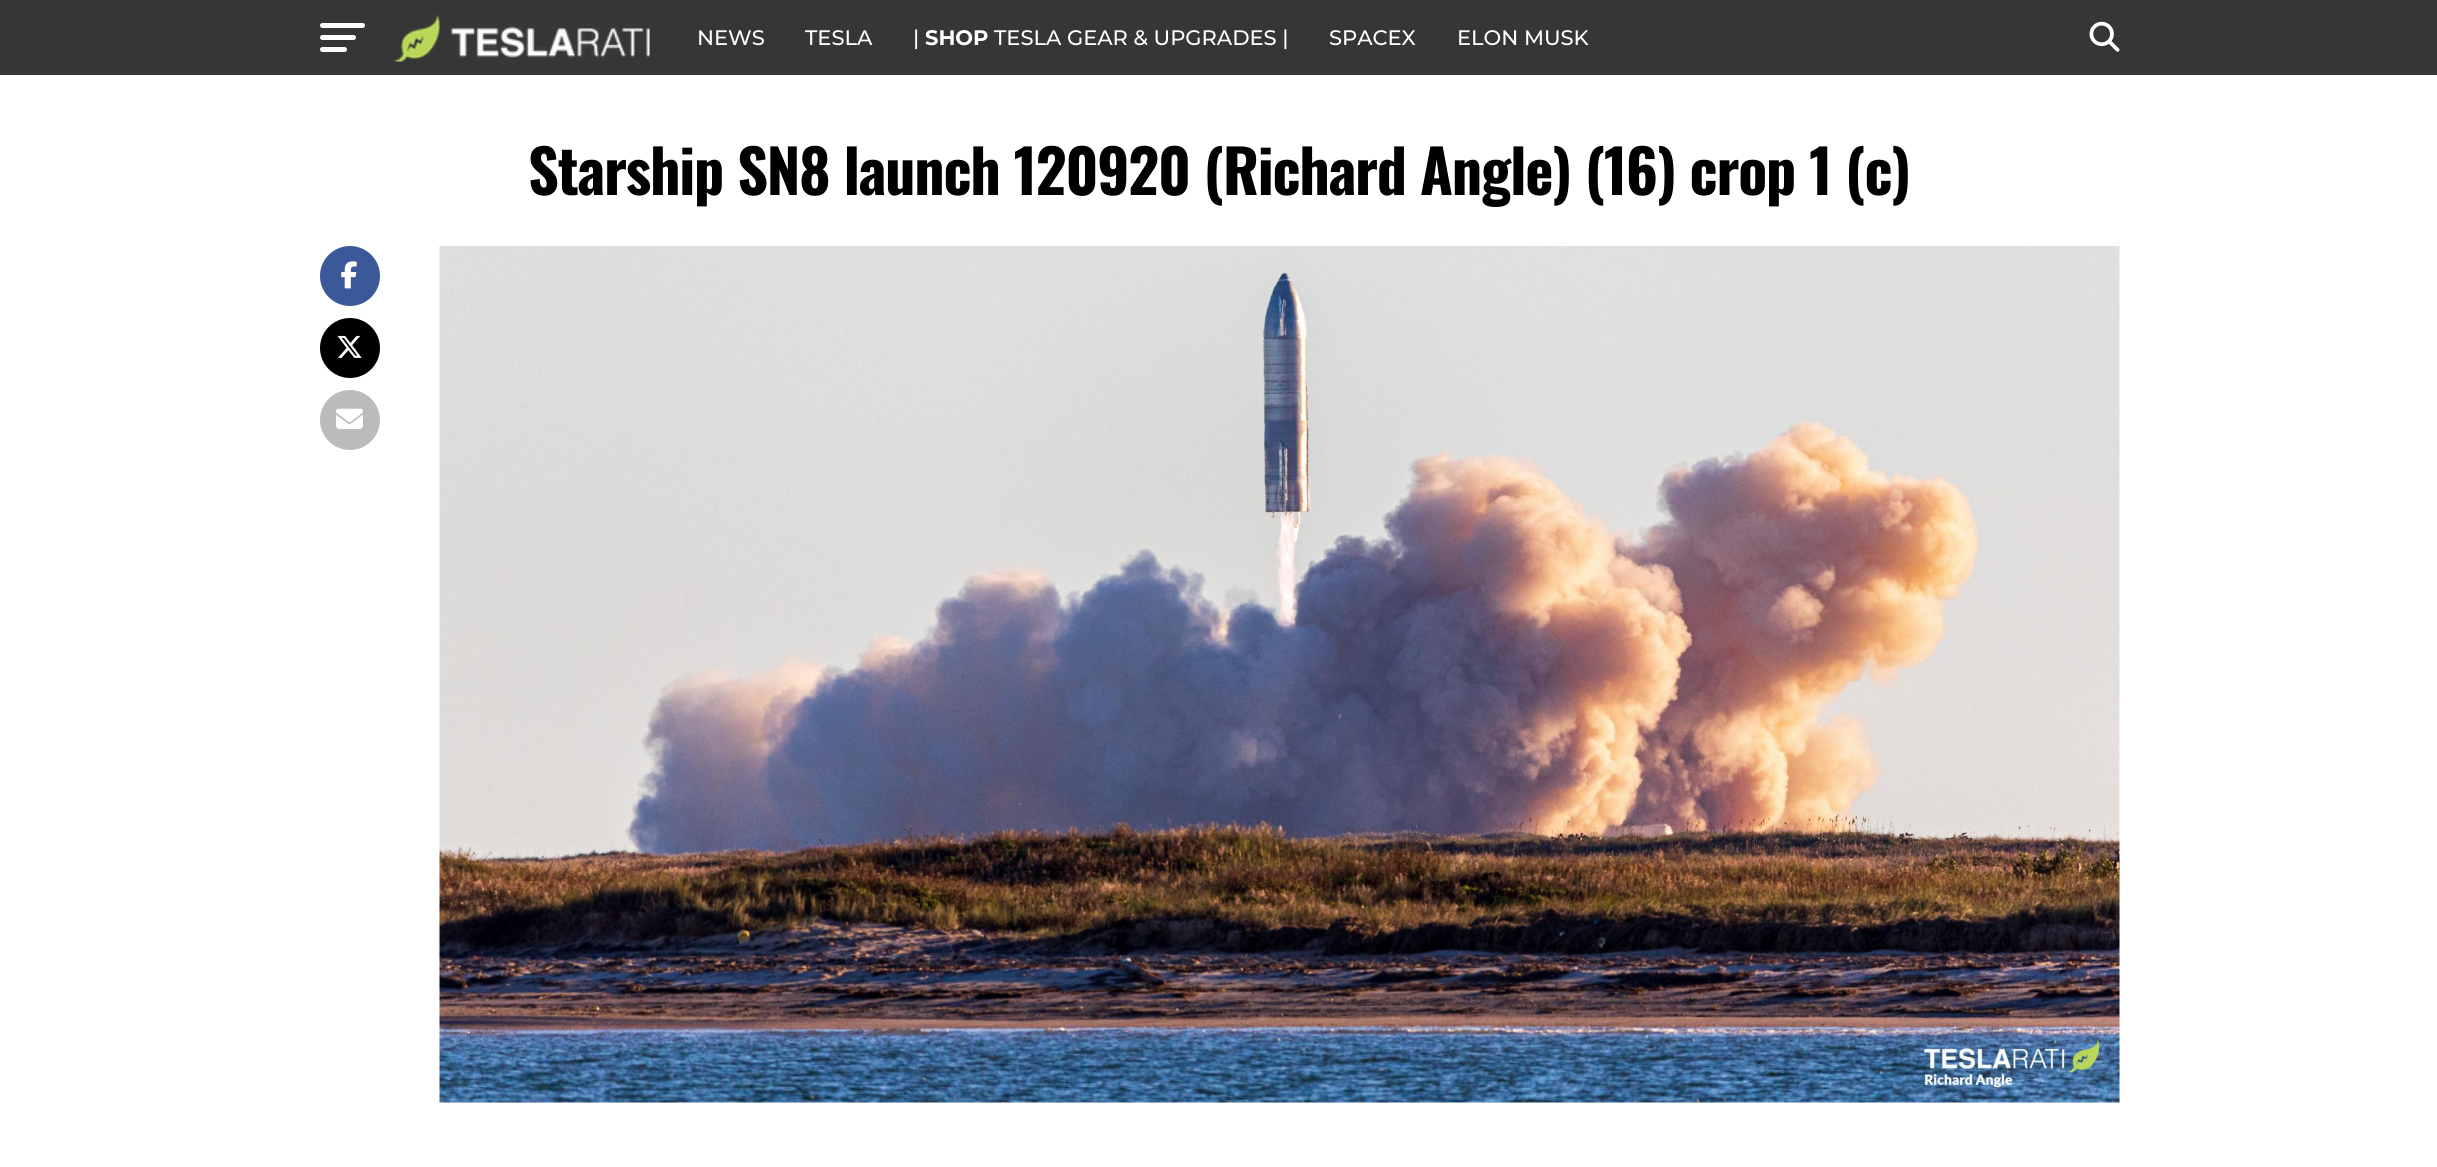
#include <cairo/cairo.h>
#include <math.h>
#include <stddef.h>

typedef struct { double x, y; const char *s; } line_t;
static cairo_t *cr;

static void rgb(unsigned color)
{
	cairo_set_source_rgb(cr, (color >> 16) / 255.0, (color >> 8 & 255) / 255.0, (color & 255) / 255.0);
}

static void tracked(double x, double y, const char *s, double letter, double word)
{
	cairo_move_to(cr, x, y);
	while (*s) {
		char ch[5] = {0};
		int n = 0;
		do ch[n++] = *s++; while ((*s & 0xC0) == 0x80);
		cairo_show_text(cr, ch);
		cairo_rel_move_to(cr, letter + word * (*ch == ' '), 0);
	}
}

static void rrect(double x, double y, double w, double h, double r)
{
	cairo_new_sub_path(cr);
	cairo_arc(cr, x + w - r, y + h - r, r, 0, M_PI / 2);
	cairo_arc(cr, x + r, y + h - r, r, M_PI / 2, M_PI);
	cairo_arc(cr, x + r, y + r, r, M_PI, 1.5 * M_PI);
	cairo_arc(cr, x + w - r, y + r, r, 1.5 * M_PI, 2 * M_PI);
	cairo_close_path(cr);
}

static void image(const char *path, double x, double y, double w, double h)
{
	cairo_surface_t *image = cairo_image_surface_create_from_png(path);
	cairo_save(cr);
	cairo_set_source_surface(cr, image, x, y);
	cairo_rectangle(cr, x, y, w, h);
	cairo_fill(cr);
	cairo_restore(cr);
	cairo_surface_destroy(image);
}

int main(void) {
	cairo_surface_t *surface = cairo_image_surface_create(CAIRO_FORMAT_RGB24, 2437, 1167);
	cr = cairo_create(surface);
	cairo_font_options_t *options = cairo_font_options_create();
	cairo_font_options_set_hint_metrics(options, CAIRO_HINT_METRICS_OFF);
	cairo_font_options_set_hint_style(options, CAIRO_HINT_STYLE_NONE);
	cairo_set_font_options(cr, options);
	cairo_set_miter_limit(cr, 4);
	rgb(0xffffff);
	cairo_paint(cr);
	rgb(0x363636);
	cairo_rectangle(cr, 0, 0, 2437, 75);
	cairo_fill(cr);
	rgb(0xffffff);
	rrect(320, 23, 45, 5, 2.5);
	cairo_fill(cr);
	rrect(320, 35, 36, 5, 2.5);
	cairo_fill(cr);
	rrect(320, 47, 27, 5, 2.5);
	cairo_fill(cr);
	image("img/1.png", 394, 15, 256, 47);
	image("img/2.png", 2089, 21, 31, 31);
	rgb(0x3b5998);
	cairo_arc(cr, 350, 276, 30, 0, 2 * M_PI);
	cairo_fill(cr);
	image("img/3.png", 341, 261, 16, 28);
	rgb(0x000000);
	cairo_arc(cr, 350, 348, 30, 0, 2 * M_PI);
	cairo_fill(cr);
	image("img/4.png", 337, 335, 25, 23);
	rgb(0xbbbbbb);
	cairo_arc(cr, 350, 420, 30, 0, 2 * M_PI);
	cairo_fill(cr);
	image("img/5.png", 336, 408, 27, 21);
	image("img/6.png", 439, 246, 1681, 857);
	cairo_select_font_face(cr, "Montserrat Medium", CAIRO_FONT_SLANT_NORMAL, CAIRO_FONT_WEIGHT_NORMAL);
	cairo_set_font_size(cr, 21);
	rgb(0xffffff);
	{
		static const line_t items[] = {
			{697, 45, "NEWS"},
			{805, 45, "TESLA"},
			{913, 45, "|"},
		};
		for (size_t i = 0; i < sizeof items / sizeof *items; i++) {
			cairo_move_to(cr, items[i].x, items[i].y);
			cairo_show_text(cr, items[i].s);
		}
	}
	cairo_select_font_face(cr, "Montserrat", CAIRO_FONT_SLANT_NORMAL, CAIRO_FONT_WEIGHT_BOLD);
	cairo_move_to(cr, 925, 45);
	cairo_show_text(cr, "SHOP");
	cairo_select_font_face(cr, "Montserrat Medium", CAIRO_FONT_SLANT_NORMAL, CAIRO_FONT_WEIGHT_NORMAL);
	{
		static const line_t items[] = {
			{994, 45, "TESLA GEAR & UPGRADES |"},
			{1329, 45, "SPACEX"},
			{1457, 45, "ELON MUSK"},
		};
		for (size_t i = 0; i < sizeof items / sizeof *items; i++) {
			cairo_move_to(cr, items[i].x, items[i].y);
			cairo_show_text(cr, items[i].s);
		}
	}
	cairo_select_font_face(cr, "Oswald", CAIRO_FONT_SLANT_NORMAL, CAIRO_FONT_WEIGHT_BOLD);
	cairo_set_font_size(cr, 60);
	rgb(0x000000);
	tracked(528, 195, "Starship SN8 launch 120920 (Richard Angle) (16) crop 1 (c)", -1.2, 0);
	cairo_surface_write_to_png(surface, "page.png");
	cairo_font_options_destroy(options);
	cairo_destroy(cr);
	cairo_surface_destroy(surface);
	return 0;
}
